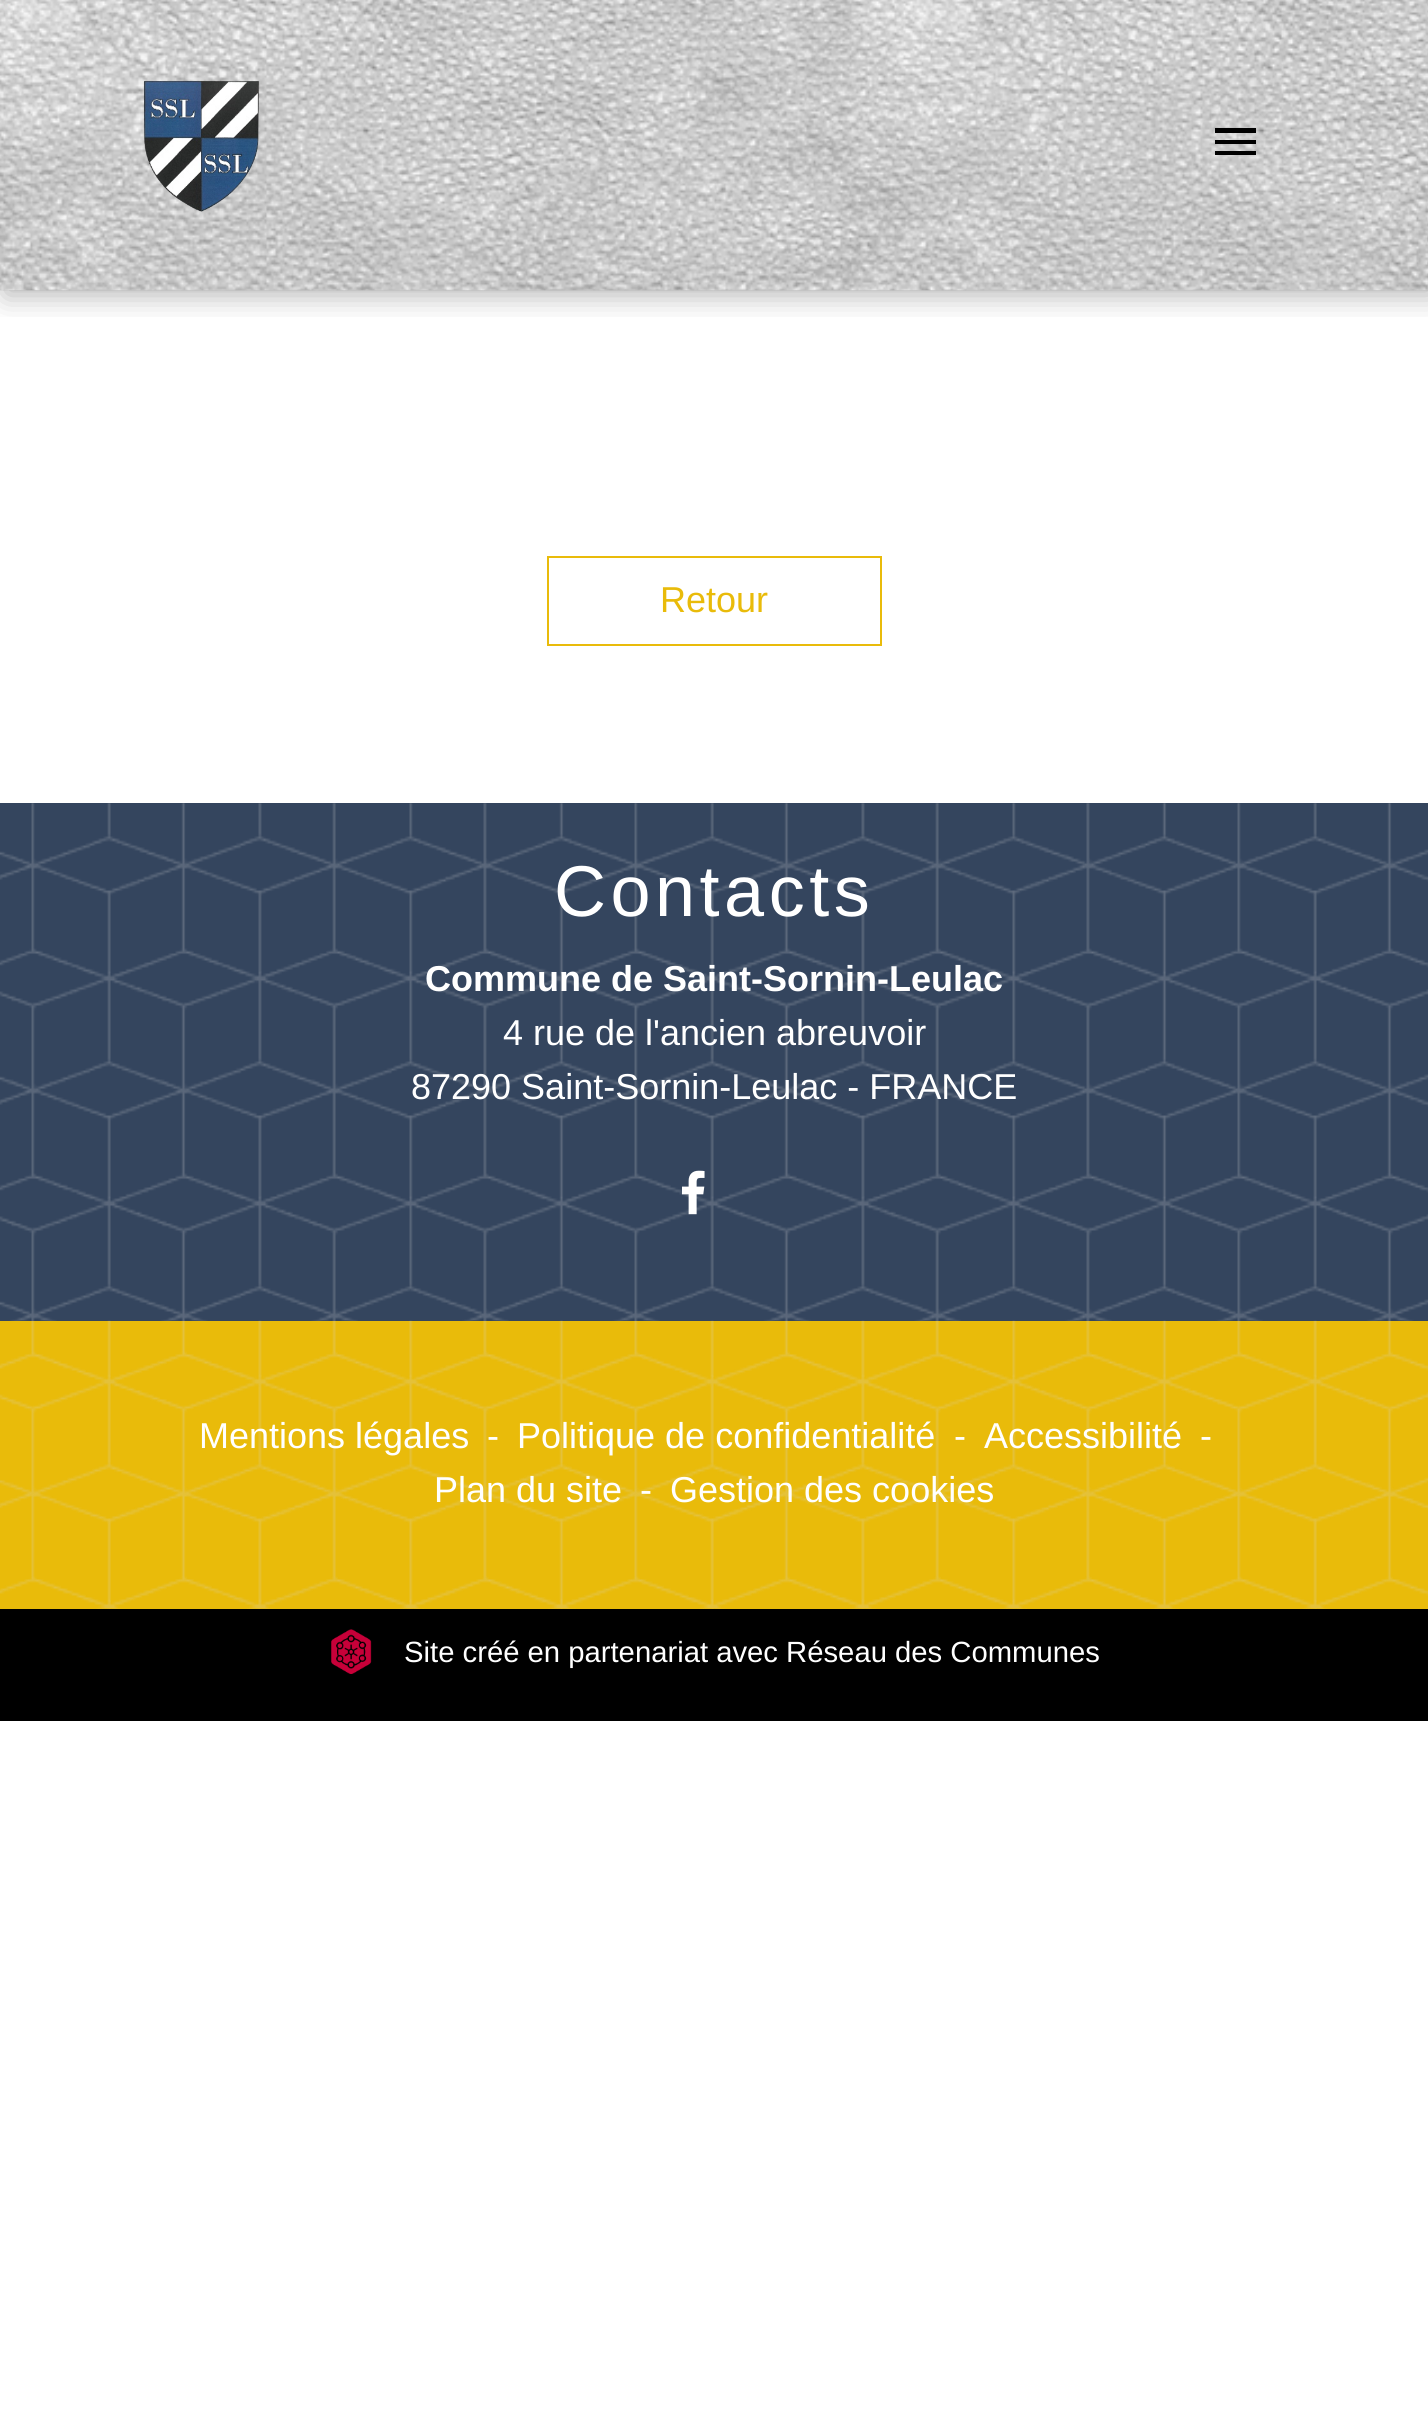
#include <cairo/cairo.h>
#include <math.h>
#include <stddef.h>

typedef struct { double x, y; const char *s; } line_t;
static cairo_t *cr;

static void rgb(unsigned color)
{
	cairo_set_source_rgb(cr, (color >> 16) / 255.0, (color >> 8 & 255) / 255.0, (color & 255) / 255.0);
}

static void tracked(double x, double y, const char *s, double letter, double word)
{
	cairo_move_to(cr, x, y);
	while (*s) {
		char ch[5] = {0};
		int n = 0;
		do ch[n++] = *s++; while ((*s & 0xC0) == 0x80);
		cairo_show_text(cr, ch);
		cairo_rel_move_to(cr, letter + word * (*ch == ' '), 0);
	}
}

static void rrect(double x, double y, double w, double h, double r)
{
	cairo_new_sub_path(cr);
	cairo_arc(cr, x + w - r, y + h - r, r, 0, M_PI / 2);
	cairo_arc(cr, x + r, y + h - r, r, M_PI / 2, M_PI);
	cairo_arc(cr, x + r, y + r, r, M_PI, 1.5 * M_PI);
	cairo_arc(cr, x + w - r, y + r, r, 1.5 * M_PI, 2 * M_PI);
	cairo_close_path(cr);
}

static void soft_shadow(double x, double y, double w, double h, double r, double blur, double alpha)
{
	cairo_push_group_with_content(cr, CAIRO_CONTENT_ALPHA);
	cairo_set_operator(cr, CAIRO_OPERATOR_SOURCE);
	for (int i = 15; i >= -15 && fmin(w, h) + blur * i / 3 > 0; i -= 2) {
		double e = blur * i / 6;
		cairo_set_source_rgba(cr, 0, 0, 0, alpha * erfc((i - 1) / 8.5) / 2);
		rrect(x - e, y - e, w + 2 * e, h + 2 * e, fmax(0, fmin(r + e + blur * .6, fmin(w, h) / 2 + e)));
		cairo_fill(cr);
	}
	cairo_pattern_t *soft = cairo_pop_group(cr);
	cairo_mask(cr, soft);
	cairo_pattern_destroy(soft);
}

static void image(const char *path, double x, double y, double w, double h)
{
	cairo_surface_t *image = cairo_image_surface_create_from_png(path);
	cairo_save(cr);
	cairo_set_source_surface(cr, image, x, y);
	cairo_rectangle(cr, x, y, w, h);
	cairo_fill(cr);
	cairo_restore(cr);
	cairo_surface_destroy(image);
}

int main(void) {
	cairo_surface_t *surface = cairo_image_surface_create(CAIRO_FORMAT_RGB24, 1428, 2425);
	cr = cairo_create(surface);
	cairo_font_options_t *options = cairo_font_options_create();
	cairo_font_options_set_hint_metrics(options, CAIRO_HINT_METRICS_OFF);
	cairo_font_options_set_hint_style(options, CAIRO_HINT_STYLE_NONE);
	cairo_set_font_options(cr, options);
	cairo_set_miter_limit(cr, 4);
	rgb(0xffffff);
	cairo_paint(cr);
	cairo_save(cr);
	cairo_rectangle(cr, 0, 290, 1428, 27);
	cairo_clip(cr);
	rgb(0x000000);
	soft_shadow(5, 5, 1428, 290, 0, 14.5, 0.3);
	cairo_restore(cr);
	image("img/1.png", 0, 0, 1428, 291);
	image("img/2.png", 143, 80, 117, 132);
	rgb(0x000000);
	cairo_new_path(cr);
	cairo_move_to(cr, 1215, 128);
	cairo_line_to(cr, 1256, 128);
	cairo_line_to(cr, 1256, 133);
	cairo_line_to(cr, 1215, 133);
	cairo_close_path(cr);
	cairo_move_to(cr, 1215, 144);
	cairo_line_to(cr, 1215, 140);
	cairo_line_to(cr, 1256, 140);
	cairo_line_to(cr, 1256, 144);
	cairo_close_path(cr);
	cairo_move_to(cr, 1215, 155);
	cairo_line_to(cr, 1215, 151);
	cairo_line_to(cr, 1256, 151);
	cairo_line_to(cr, 1256, 155);
	cairo_close_path(cr);
	cairo_fill(cr);
	cairo_rectangle(cr, 548, 557, 333, 88);
	rgb(0xe9bb0a);
	cairo_stroke(cr);
	rgb(0x34455e);
	cairo_rectangle(cr, 0, 803, 1428, 518);
	cairo_fill(cr);
	image("img/3.png", 0, 803, 1428, 518);
	image("img/4.png", 682, 1170, 23, 45);
	rgb(0xe9bb0a);
	cairo_rectangle(cr, 0, 1321, 1428, 288);
	cairo_fill(cr);
	image("img/5.png", 0, 1320, 1428, 289);
	rgb(0x000000);
	cairo_rectangle(cr, 0, 1609, 1428, 112);
	cairo_fill(cr);
	image("img/6.png", 331, 1629, 41, 45);
	cairo_select_font_face(cr, "Liberation Sans", CAIRO_FONT_SLANT_NORMAL, CAIRO_FONT_WEIGHT_NORMAL);
	cairo_set_font_size(cr, 36);
	rgb(0xe9bb0a);
	cairo_move_to(cr, 660, 612);
	cairo_show_text(cr, "Retour");
	cairo_set_font_size(cr, 72);
	rgb(0xffffff);
	tracked(554, 916, "Contacts", 4.5, 0);
	cairo_select_font_face(cr, "Liberation Sans", CAIRO_FONT_SLANT_NORMAL, CAIRO_FONT_WEIGHT_BOLD);
	cairo_set_font_size(cr, 36);
	cairo_move_to(cr, 425, 991);
	cairo_show_text(cr, "Commune de Saint-Sornin-Leulac");
	cairo_select_font_face(cr, "Liberation Sans", CAIRO_FONT_SLANT_NORMAL, CAIRO_FONT_WEIGHT_NORMAL);
	{
		static const line_t items[] = {
			{503, 1045, "4 rue de l'ancien abreuvoir"},
			{411, 1099, "87290 Saint-Sornin-Leulac - FRANCE"},
			{199, 1448, "Mentions légales"},
			{487, 1448, "-"},
			{517, 1448, "Politique de confidentialité"},
			{954, 1448, "-"},
			{984, 1448, "Accessibilité"},
			{1200, 1448, "-"},
			{434, 1502, "Plan du site"},
			{640, 1502, "-"},
			{670, 1502, "Gestion des cookies"},
		};
		for (size_t i = 0; i < sizeof items / sizeof *items; i++) {
			cairo_move_to(cr, items[i].x, items[i].y);
			cairo_show_text(cr, items[i].s);
		}
	}
	cairo_set_font_size(cr, 29.25);
	cairo_move_to(cr, 404, 1662);
	cairo_show_text(cr, "Site créé en partenariat avec Réseau des Communes");
	cairo_surface_write_to_png(surface, "page.png");
	cairo_font_options_destroy(options);
	cairo_destroy(cr);
	cairo_surface_destroy(surface);
	return 0;
}
